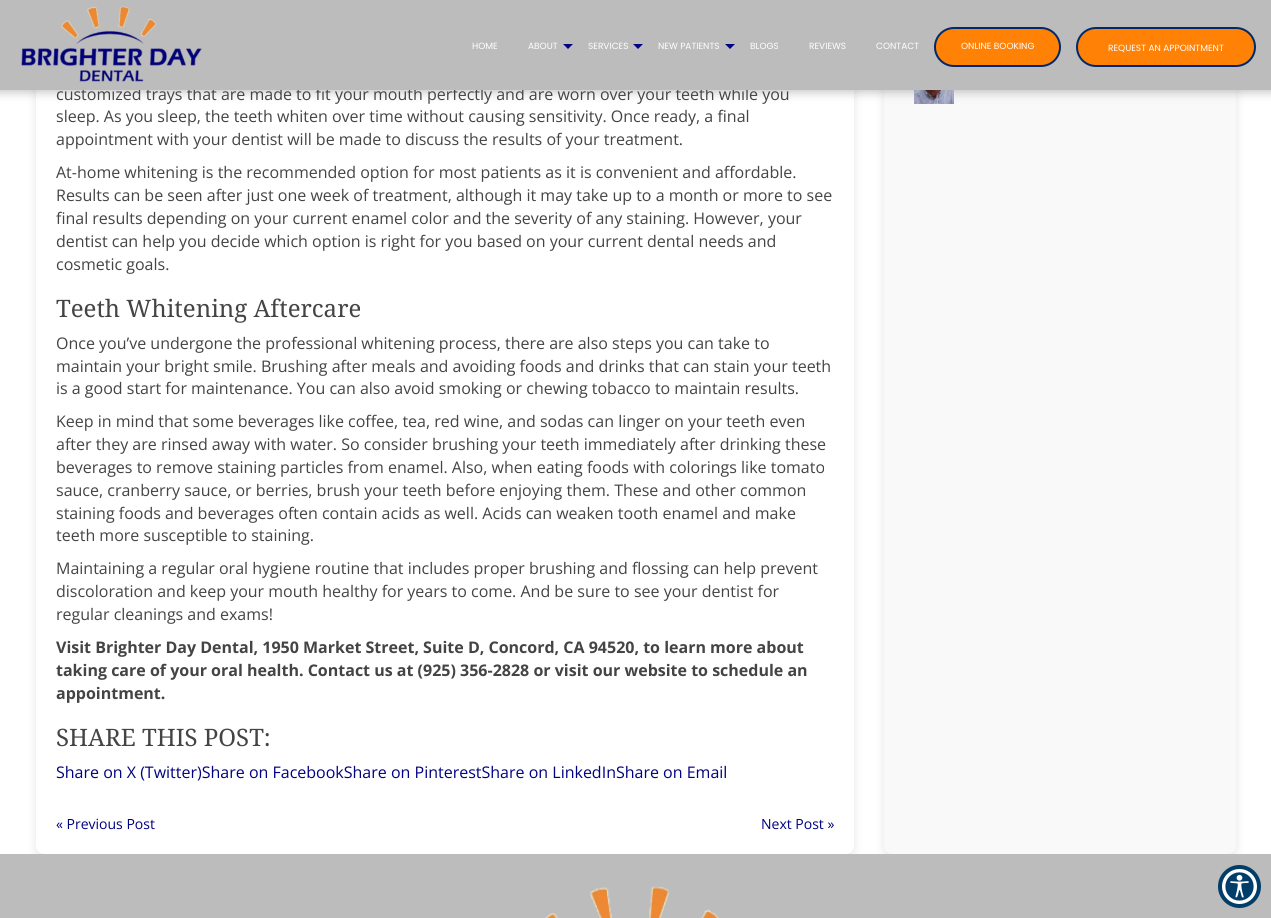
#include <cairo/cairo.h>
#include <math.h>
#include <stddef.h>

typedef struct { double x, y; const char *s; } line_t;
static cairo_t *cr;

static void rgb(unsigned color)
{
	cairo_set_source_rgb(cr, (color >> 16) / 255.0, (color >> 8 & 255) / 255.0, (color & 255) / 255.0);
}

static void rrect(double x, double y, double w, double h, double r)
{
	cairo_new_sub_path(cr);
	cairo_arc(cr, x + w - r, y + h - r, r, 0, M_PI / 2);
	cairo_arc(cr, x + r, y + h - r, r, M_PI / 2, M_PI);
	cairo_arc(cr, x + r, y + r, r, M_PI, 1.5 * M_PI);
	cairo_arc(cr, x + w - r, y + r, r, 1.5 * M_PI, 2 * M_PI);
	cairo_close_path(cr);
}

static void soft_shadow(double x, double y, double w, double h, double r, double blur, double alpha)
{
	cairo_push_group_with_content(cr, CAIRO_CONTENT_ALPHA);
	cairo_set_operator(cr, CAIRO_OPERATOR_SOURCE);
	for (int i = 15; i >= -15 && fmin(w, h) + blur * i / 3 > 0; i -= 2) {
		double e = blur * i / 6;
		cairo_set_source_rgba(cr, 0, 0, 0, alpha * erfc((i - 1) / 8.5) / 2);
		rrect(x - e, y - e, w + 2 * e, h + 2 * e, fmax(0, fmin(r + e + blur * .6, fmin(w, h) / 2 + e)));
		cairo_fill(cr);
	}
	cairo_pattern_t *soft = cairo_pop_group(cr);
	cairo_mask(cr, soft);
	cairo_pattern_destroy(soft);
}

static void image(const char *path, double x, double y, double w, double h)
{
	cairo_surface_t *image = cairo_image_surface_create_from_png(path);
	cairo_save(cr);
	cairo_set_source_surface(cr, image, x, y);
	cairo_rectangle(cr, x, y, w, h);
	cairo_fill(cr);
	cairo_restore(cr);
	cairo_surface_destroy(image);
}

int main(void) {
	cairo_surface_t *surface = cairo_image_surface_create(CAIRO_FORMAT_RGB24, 1271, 918);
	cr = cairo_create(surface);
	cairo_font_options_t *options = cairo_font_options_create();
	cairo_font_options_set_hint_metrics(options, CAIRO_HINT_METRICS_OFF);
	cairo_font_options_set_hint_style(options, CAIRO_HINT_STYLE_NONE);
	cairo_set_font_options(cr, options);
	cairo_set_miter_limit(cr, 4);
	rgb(0xffffff);
	cairo_paint(cr);
	rgb(0x000000);
	soft_shadow(36, -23, 818, 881, 8, 5, 0.1);
	rgb(0xffffff);
	rrect(36, -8, 818, 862, 8);
	cairo_fill(cr);
	rgb(0x000000);
	soft_shadow(884, -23, 352, 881, 8, 5, 0.1);
	rgb(0xf9f9f9);
	rrect(884, -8, 352, 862, 8);
	cairo_fill(cr);
	image("img/2.png", 914, 90, 40, 14);
	rgb(0x292929);
	soft_shadow(-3, -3, 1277, 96, 0, 4.5, 0.25);
	rgb(0xbcbcbc);
	cairo_rectangle(cr, 0, 854, 1271, 64);
	cairo_fill(cr);
	image("img/3.png", 545, 886, 174, 32);
	rgb(0x003d68);
	cairo_arc(cr, 1239.5, 886.5, 21.5, 0, 2 * M_PI);
	cairo_fill(cr);
	image("img/4.png", 1222, 869, 35, 35);
	cairo_select_font_face(cr, "Open Sans", CAIRO_FONT_SLANT_NORMAL, CAIRO_FONT_WEIGHT_NORMAL);
	cairo_set_font_size(cr, 16);
	rgb(0x444444);
	cairo_move_to(cr, 56, 100);
	cairo_show_text(cr, "customized trays that are made to fit your mouth perfectly and are worn over your teeth while you");
	rgb(0xbcbcbc);
	cairo_rectangle(cr, 0, 0, 1271, 90);
	cairo_fill(cr);
	rgb(0xff8106);
	rrect(1077, 28, 178, 38, 19);
	cairo_fill_preserve(cr);
	rgb(0x00296b);
	cairo_stroke(cr);
	cairo_select_font_face(cr, "Poppins", CAIRO_FONT_SLANT_NORMAL, CAIRO_FONT_WEIGHT_NORMAL);
	cairo_set_font_size(cr, 9);
	rgb(0xffffff);
	cairo_move_to(cr, 1108, 51);
	cairo_show_text(cr, "REQUEST AN APPOINTMENT");
	rgb(0xff8106);
	rrect(935, 28, 125, 38, 19);
	cairo_fill_preserve(cr);
	rgb(0x00296b);
	cairo_stroke(cr);
	rgb(0xffffff);
	{
		static const line_t items[] = {
			{961, 49, "ONLINE BOOKING"},
			{876, 49, "CONTACT"},
			{809, 49, "REVIEWS"},
			{750, 49, "BLOGS"},
		};
		for (size_t i = 0; i < sizeof items / sizeof *items; i++) {
			cairo_move_to(cr, items[i].x, items[i].y);
			cairo_show_text(cr, items[i].s);
		}
	}
	rgb(0x010281);
	cairo_new_path(cr);
	cairo_move_to(cr, 725, 44);
	cairo_line_to(cr, 735, 44);
	cairo_line_to(cr, 730, 49);
	cairo_close_path(cr);
	cairo_fill(cr);
	rgb(0xffffff);
	cairo_move_to(cr, 658, 49);
	cairo_show_text(cr, "NEW PATIENTS");
	rgb(0x010281);
	cairo_new_path(cr);
	cairo_move_to(cr, 633, 44);
	cairo_line_to(cr, 643, 44);
	cairo_line_to(cr, 638, 49);
	cairo_close_path(cr);
	cairo_fill(cr);
	rgb(0xffffff);
	cairo_move_to(cr, 588, 49);
	cairo_show_text(cr, "SERVICES");
	rgb(0x010281);
	cairo_new_path(cr);
	cairo_move_to(cr, 563, 44);
	cairo_line_to(cr, 573, 44);
	cairo_line_to(cr, 568, 49);
	cairo_close_path(cr);
	cairo_fill(cr);
	rgb(0xffffff);
	cairo_move_to(cr, 528, 49);
	cairo_show_text(cr, "ABOUT");
	cairo_move_to(cr, 472, 49);
	cairo_show_text(cr, "HOME");
	image("img/1.png", 21, 6, 181, 76);
	cairo_select_font_face(cr, "Open Sans", CAIRO_FONT_SLANT_NORMAL, CAIRO_FONT_WEIGHT_NORMAL);
	cairo_set_font_size(cr, 16);
	rgb(0x444444);
	{
		static const line_t items[] = {
			{56, 122, "sleep. As you sleep, the teeth whiten over time without causing sensitivity. Once ready, a final"},
			{56, 145, "appointment with your dentist will be made to discuss the results of your treatment."},
			{56, 178, "At-home whitening is the recommended option for most patients as it is convenient and affordable."},
			{56, 201, "Results can be seen after just one week of treatment, although it may take up to a month or more to see"},
			{56, 224, "final results depending on your current enamel color and the severity of any staining. However, your"},
			{56, 247, "dentist can help you decide which option is right for you based on your current dental needs and"},
			{56, 270, "cosmetic goals."},
		};
		for (size_t i = 0; i < sizeof items / sizeof *items; i++) {
			cairo_move_to(cr, items[i].x, items[i].y);
			cairo_show_text(cr, items[i].s);
		}
	}
	cairo_select_font_face(cr, "Noto Serif", CAIRO_FONT_SLANT_NORMAL, CAIRO_FONT_WEIGHT_NORMAL);
	cairo_set_font_size(cr, 24);
	cairo_move_to(cr, 56, 317);
	cairo_show_text(cr, "Teeth Whitening Aftercare");
	cairo_select_font_face(cr, "Open Sans", CAIRO_FONT_SLANT_NORMAL, CAIRO_FONT_WEIGHT_NORMAL);
	cairo_set_font_size(cr, 16);
	{
		static const line_t items[] = {
			{56, 349, "Once you’ve undergone the professional whitening process, there are also steps you can take to"},
			{56, 372, "maintain your bright smile. Brushing after meals and avoiding foods and drinks that can stain your teeth"},
			{56, 394, "is a good start for maintenance. You can also avoid smoking or chewing tobacco to maintain results."},
			{56, 427, "Keep in mind that some beverages like coffee, tea, red wine, and sodas can linger on your teeth even"},
			{56, 450, "after they are rinsed away with water. So consider brushing your teeth immediately after drinking these"},
			{56, 473, "beverages to remove staining particles from enamel. Also, when eating foods with colorings like tomato"},
			{56, 496, "sauce, cranberry sauce, or berries, brush your teeth before enjoying them. These and other common"},
			{56, 519, "staining foods and beverages often contain acids as well. Acids can weaken tooth enamel and make"},
			{56, 541, "teeth more susceptible to staining."},
			{56, 574, "Maintaining a regular oral hygiene routine that includes proper brushing and flossing can help prevent"},
			{56, 597, "discoloration and keep your mouth healthy for years to come. And be sure to see your dentist for"},
			{56, 620, "regular cleanings and exams!"},
		};
		for (size_t i = 0; i < sizeof items / sizeof *items; i++) {
			cairo_move_to(cr, items[i].x, items[i].y);
			cairo_show_text(cr, items[i].s);
		}
	}
	cairo_select_font_face(cr, "Open Sans", CAIRO_FONT_SLANT_NORMAL, CAIRO_FONT_WEIGHT_BOLD);
	{
		static const line_t items[] = {
			{56, 653, "Visit Brighter Day Dental, 1950 Market Street, Suite D, Concord, CA 94520, to learn more about"},
			{56, 676, "taking care of your oral health. Contact us at (925) 356-2828 or visit our website to schedule an"},
			{56, 699, "appointment."},
		};
		for (size_t i = 0; i < sizeof items / sizeof *items; i++) {
			cairo_move_to(cr, items[i].x, items[i].y);
			cairo_show_text(cr, items[i].s);
		}
	}
	cairo_select_font_face(cr, "Noto Serif", CAIRO_FONT_SLANT_NORMAL, CAIRO_FONT_WEIGHT_NORMAL);
	cairo_set_font_size(cr, 24);
	cairo_move_to(cr, 56, 746);
	cairo_show_text(cr, "SHARE THIS POST:");
	cairo_select_font_face(cr, "Open Sans", CAIRO_FONT_SLANT_NORMAL, CAIRO_FONT_WEIGHT_NORMAL);
	cairo_set_font_size(cr, 16);
	rgb(0x010281);
	cairo_move_to(cr, 56, 778);
	cairo_show_text(cr, "Share on X (Twitter)Share on FacebookShare on PinterestShare on LinkedInShare on Email");
	cairo_set_font_size(cr, 14);
	cairo_move_to(cr, 56, 829);
	cairo_show_text(cr, "« Previous Post");
	cairo_move_to(cr, 761, 829);
	cairo_show_text(cr, "Next Post »");
	cairo_surface_write_to_png(surface, "page.png");
	cairo_font_options_destroy(options);
	cairo_destroy(cr);
	cairo_surface_destroy(surface);
	return 0;
}
